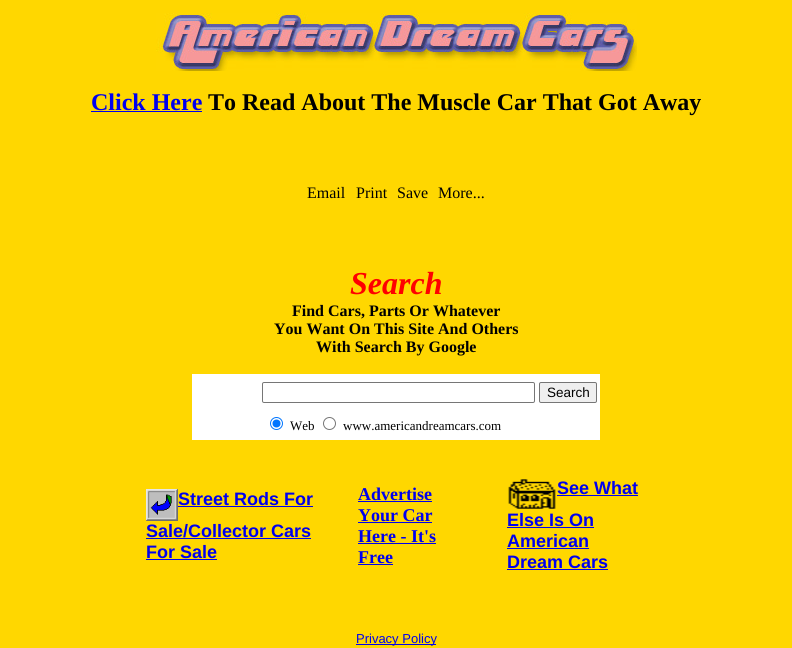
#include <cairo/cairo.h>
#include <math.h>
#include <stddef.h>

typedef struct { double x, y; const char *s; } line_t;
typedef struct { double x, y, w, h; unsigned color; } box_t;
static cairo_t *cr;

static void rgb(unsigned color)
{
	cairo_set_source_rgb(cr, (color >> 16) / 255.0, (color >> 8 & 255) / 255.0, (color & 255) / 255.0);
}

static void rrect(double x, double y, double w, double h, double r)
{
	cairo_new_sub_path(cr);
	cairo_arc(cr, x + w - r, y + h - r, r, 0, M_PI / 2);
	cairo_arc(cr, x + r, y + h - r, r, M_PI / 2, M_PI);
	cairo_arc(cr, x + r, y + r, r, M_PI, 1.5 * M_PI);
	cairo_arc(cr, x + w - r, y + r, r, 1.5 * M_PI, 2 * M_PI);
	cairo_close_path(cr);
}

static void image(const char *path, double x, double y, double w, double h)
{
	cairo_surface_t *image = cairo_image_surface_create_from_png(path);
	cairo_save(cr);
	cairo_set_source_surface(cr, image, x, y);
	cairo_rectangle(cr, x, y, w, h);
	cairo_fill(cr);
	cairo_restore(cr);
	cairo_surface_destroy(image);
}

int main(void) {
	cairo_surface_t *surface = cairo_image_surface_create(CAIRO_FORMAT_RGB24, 792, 648);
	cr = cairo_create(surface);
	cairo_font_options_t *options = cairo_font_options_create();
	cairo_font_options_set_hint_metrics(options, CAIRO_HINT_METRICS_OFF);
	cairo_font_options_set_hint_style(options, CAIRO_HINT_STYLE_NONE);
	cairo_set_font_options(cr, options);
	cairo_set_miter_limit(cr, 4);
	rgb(0xffd700);
	cairo_paint(cr);
	image("img/1.png", 156, 13, 481, 58);
	rgb(0x0000ee);
	cairo_rectangle(cr, 91, 111, 111, 1);
	cairo_fill(cr);
	rgb(0xffffff);
	cairo_rectangle(cr, 192, 374, 408, 66);
	cairo_fill(cr);
	rrect(262.5, 382.5, 272, 20, 1.5);
	rgb(0x767676);
	cairo_set_line_width(cr, 1);
	cairo_stroke(cr);
	rgb(0xefefef);
	rrect(539.5, 382.5, 57, 20, 1.5);
	cairo_fill_preserve(cr);
	rgb(0x767676);
	cairo_stroke(cr);
	cairo_arc(cr, 276.5, 423.5, 6, 0, 2 * M_PI);
	rgb(0x0075ff);
	cairo_stroke(cr);
	cairo_arc(cr, 276.5, 423.5, 4, 0, 2 * M_PI);
	cairo_fill(cr);
	cairo_arc(cr, 329.5, 423.5, 6, 0, 2 * M_PI);
	rgb(0x767676);
	cairo_stroke(cr);
	image("img/2.png", 146, 489, 32, 32);
	{
		static const box_t items[] = {
			{178, 506, 135, 1, 0x0000ee},
			{146, 538, 165, 1, 0x0000ee},
			{146, 559, 71, 1, 0x0000ee},
			{358, 501, 74, 1, 0x0000ee},
			{358, 522, 74, 1, 0x0000ee},
			{358, 543, 78, 1, 0x0000ee},
			{358, 564, 35, 1, 0x0000ee},
		};
		for (size_t i = 0; i < sizeof items / sizeof *items; i++) {
			rgb(items[i].color);
			cairo_rectangle(cr, items[i].x, items[i].y, items[i].w, items[i].h);
			cairo_fill(cr);
		}
	}
	image("img/3.png", 508, 479, 48, 30);
	{
		static const box_t items[] = {
			{557, 495, 81, 1, 0x0000ee},
			{507, 527, 87, 1, 0x0000ee},
			{507, 548, 82, 1, 0x0000ee},
			{507, 569, 101, 1, 0x0000ee},
			{356, 644, 80, 1, 0x0000ee},
		};
		for (size_t i = 0; i < sizeof items / sizeof *items; i++) {
			rgb(items[i].color);
			cairo_rectangle(cr, items[i].x, items[i].y, items[i].w, items[i].h);
			cairo_fill(cr);
		}
	}
	cairo_select_font_face(cr, "Liberation Serif", CAIRO_FONT_SLANT_NORMAL, CAIRO_FONT_WEIGHT_BOLD);
	cairo_set_font_size(cr, 24);
	cairo_move_to(cr, 91, 110);
	cairo_show_text(cr, "Click Here");
	rgb(0x000000);
	cairo_move_to(cr, 208, 110);
	cairo_show_text(cr, "To Read About The Muscle Car That Got Away");
	cairo_select_font_face(cr, "Liberation Serif", CAIRO_FONT_SLANT_NORMAL, CAIRO_FONT_WEIGHT_NORMAL);
	cairo_set_font_size(cr, 16);
	{
		static const line_t items[] = {
			{307, 198, "Email"},
			{356, 198, "Print"},
			{397, 198, "Save"},
			{438, 198, "More..."},
		};
		for (size_t i = 0; i < sizeof items / sizeof *items; i++) {
			cairo_move_to(cr, items[i].x, items[i].y);
			cairo_show_text(cr, items[i].s);
		}
	}
	cairo_select_font_face(cr, "Liberation Serif", CAIRO_FONT_SLANT_ITALIC, CAIRO_FONT_WEIGHT_BOLD);
	cairo_set_font_size(cr, 32);
	rgb(0xff0000);
	cairo_move_to(cr, 350, 294);
	cairo_show_text(cr, "Search");
	cairo_select_font_face(cr, "Liberation Serif", CAIRO_FONT_SLANT_NORMAL, CAIRO_FONT_WEIGHT_BOLD);
	cairo_set_font_size(cr, 16);
	rgb(0x000000);
	{
		static const line_t items[] = {
			{292, 316, "Find Cars, Parts Or Whatever"},
			{274, 334, "You Want On This Site And Others"},
			{316, 352, "With Search By Google"},
		};
		for (size_t i = 0; i < sizeof items / sizeof *items; i++) {
			cairo_move_to(cr, items[i].x, items[i].y);
			cairo_show_text(cr, items[i].s);
		}
	}
	cairo_select_font_face(cr, "Liberation Sans", CAIRO_FONT_SLANT_NORMAL, CAIRO_FONT_WEIGHT_NORMAL);
	cairo_set_font_size(cr, 13.5);
	cairo_move_to(cr, 547, 397);
	cairo_show_text(cr, "Search");
	cairo_select_font_face(cr, "Liberation Serif", CAIRO_FONT_SLANT_NORMAL, CAIRO_FONT_WEIGHT_NORMAL);
	cairo_set_font_size(cr, 13);
	cairo_move_to(cr, 290, 430);
	cairo_show_text(cr, "Web");
	cairo_move_to(cr, 343, 430);
	cairo_show_text(cr, "www.americandreamcars.com");
	cairo_select_font_face(cr, "Liberation Sans", CAIRO_FONT_SLANT_NORMAL, CAIRO_FONT_WEIGHT_BOLD);
	cairo_set_font_size(cr, 18);
	rgb(0x0000ee);
	{
		static const line_t items[] = {
			{178, 505, "Street Rods For"},
			{146, 537, "Sale/Collector Cars"},
			{146, 558, "For Sale"},
		};
		for (size_t i = 0; i < sizeof items / sizeof *items; i++) {
			cairo_move_to(cr, items[i].x, items[i].y);
			cairo_show_text(cr, items[i].s);
		}
	}
	cairo_select_font_face(cr, "Liberation Serif", CAIRO_FONT_SLANT_NORMAL, CAIRO_FONT_WEIGHT_BOLD);
	{
		static const line_t items[] = {
			{358, 500, "Advertise"},
			{358, 521, "Your Car"},
			{358, 542, "Here - It's"},
			{358, 563, "Free"},
		};
		for (size_t i = 0; i < sizeof items / sizeof *items; i++) {
			cairo_move_to(cr, items[i].x, items[i].y);
			cairo_show_text(cr, items[i].s);
		}
	}
	cairo_select_font_face(cr, "Liberation Sans", CAIRO_FONT_SLANT_NORMAL, CAIRO_FONT_WEIGHT_BOLD);
	{
		static const line_t items[] = {
			{557, 494, "See What"},
			{507, 526, "Else Is On"},
			{507, 547, "American"},
			{507, 568, "Dream Cars"},
		};
		for (size_t i = 0; i < sizeof items / sizeof *items; i++) {
			cairo_move_to(cr, items[i].x, items[i].y);
			cairo_show_text(cr, items[i].s);
		}
	}
	cairo_select_font_face(cr, "Liberation Sans", CAIRO_FONT_SLANT_NORMAL, CAIRO_FONT_WEIGHT_NORMAL);
	cairo_set_font_size(cr, 13);
	cairo_move_to(cr, 356, 643);
	cairo_show_text(cr, "Privacy Policy");
	cairo_surface_write_to_png(surface, "page.png");
	cairo_font_options_destroy(options);
	cairo_destroy(cr);
	cairo_surface_destroy(surface);
	return 0;
}
